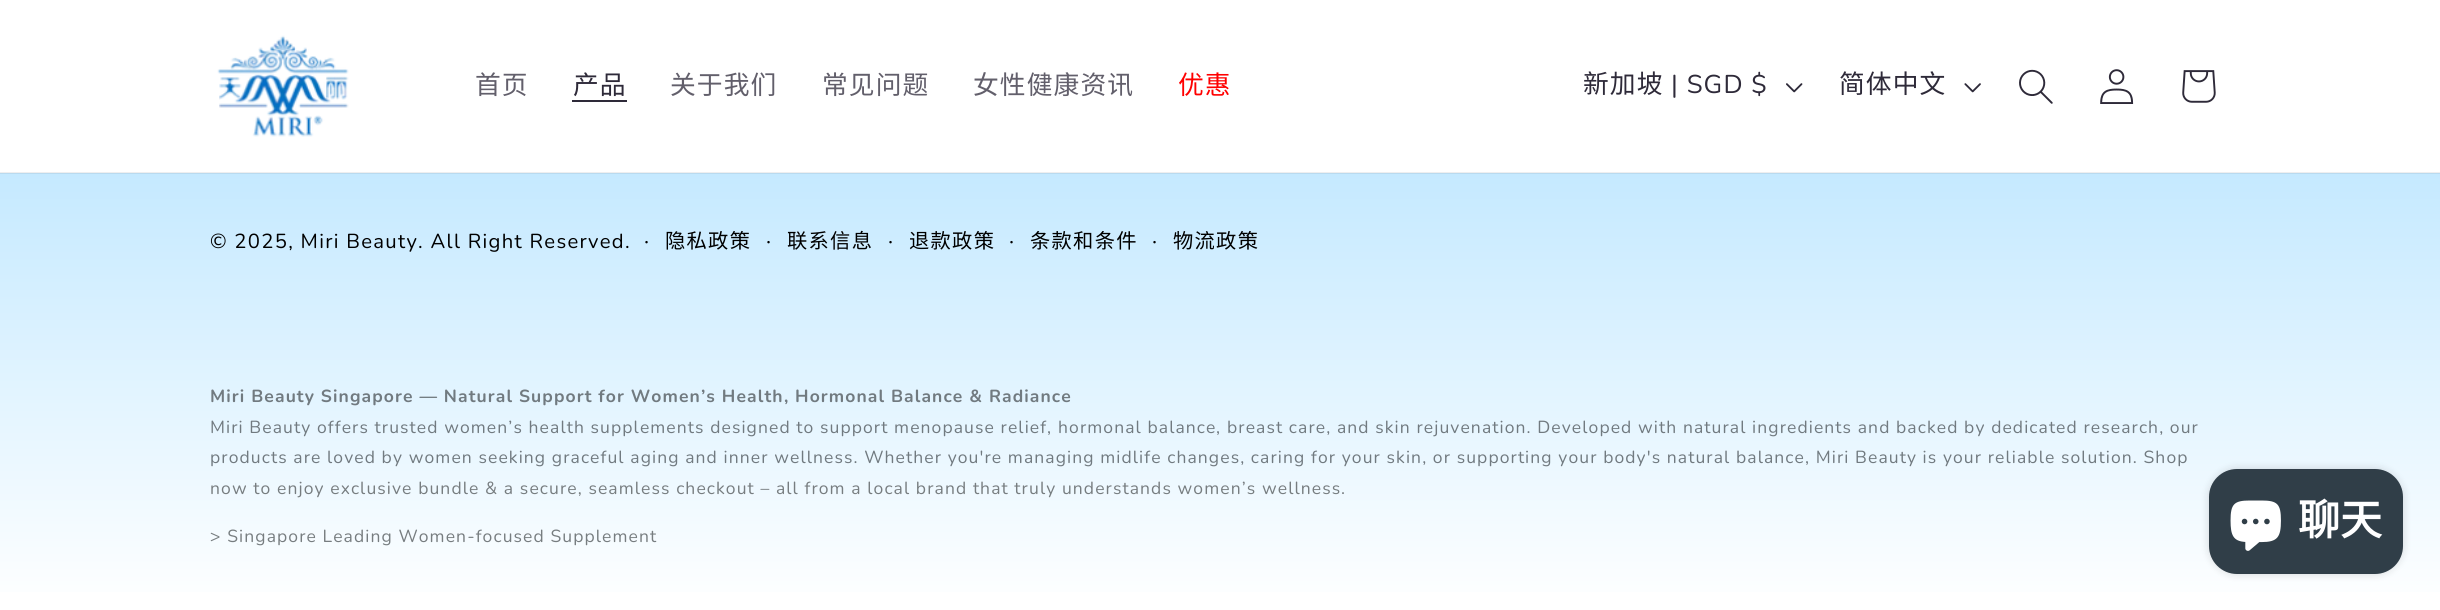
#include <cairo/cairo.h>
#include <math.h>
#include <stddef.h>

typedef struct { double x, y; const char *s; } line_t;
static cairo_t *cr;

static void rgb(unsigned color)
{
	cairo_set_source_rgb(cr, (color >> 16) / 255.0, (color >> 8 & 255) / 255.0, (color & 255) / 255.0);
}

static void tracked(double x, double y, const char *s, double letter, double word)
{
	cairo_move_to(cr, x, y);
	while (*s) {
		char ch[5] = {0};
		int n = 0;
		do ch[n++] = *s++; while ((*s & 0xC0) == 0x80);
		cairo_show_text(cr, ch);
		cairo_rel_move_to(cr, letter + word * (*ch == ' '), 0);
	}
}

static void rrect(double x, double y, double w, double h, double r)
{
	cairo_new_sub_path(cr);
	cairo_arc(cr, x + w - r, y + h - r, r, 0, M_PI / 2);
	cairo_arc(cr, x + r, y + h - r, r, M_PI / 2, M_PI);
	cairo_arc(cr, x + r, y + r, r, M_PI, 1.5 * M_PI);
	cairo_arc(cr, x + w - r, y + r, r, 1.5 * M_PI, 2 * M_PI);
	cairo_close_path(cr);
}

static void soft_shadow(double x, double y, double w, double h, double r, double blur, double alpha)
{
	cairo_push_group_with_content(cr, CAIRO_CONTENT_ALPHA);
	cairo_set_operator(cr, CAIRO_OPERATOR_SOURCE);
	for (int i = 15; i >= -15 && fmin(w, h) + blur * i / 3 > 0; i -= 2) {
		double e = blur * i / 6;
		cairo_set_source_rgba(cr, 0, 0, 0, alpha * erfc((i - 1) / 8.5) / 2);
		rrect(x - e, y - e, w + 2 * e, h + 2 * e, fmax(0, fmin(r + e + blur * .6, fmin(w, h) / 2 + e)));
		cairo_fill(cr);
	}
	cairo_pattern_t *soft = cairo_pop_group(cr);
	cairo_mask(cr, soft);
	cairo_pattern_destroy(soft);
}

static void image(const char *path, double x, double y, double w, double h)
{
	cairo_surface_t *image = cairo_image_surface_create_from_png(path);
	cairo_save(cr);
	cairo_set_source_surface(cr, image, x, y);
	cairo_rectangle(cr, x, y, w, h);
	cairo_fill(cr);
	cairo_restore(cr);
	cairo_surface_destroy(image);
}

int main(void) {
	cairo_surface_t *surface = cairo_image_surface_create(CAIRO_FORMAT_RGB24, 2440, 610);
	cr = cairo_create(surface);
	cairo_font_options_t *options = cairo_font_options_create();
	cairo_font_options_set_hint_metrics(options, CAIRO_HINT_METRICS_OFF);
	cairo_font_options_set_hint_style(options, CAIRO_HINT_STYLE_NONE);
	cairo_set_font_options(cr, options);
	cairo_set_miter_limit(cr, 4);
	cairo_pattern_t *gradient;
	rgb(0xffffff);
	cairo_paint(cr);
	rgb(0xeeeeef);
	cairo_rectangle(cr, 0, 172, 2440, 1);
	cairo_fill(cr);
	image("img/1.png", 217, 35, 132, 102);
	rgb(0x2e2a39);
	cairo_rectangle(cr, 572, 100, 55, 2);
	cairo_fill(cr);
	image("img/2.png", 1786, 83, 17, 10);
	image("img/3.png", 1964, 83, 17, 10);
	image("img/4.png", 2019, 69, 34, 35);
	image("img/5.png", 2100, 69, 34, 35);
	image("img/6.png", 2182, 70, 34, 33);
	gradient = cairo_pattern_create_linear(1221, 0, 1221, 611);
	cairo_pattern_add_color_stop_rgba(gradient, 0.01, 0.686, 0.882, 1, 1);
	cairo_pattern_add_color_stop_rgba(gradient, 1, 1, 1, 1, 1);
	cairo_set_source(cr, gradient);
	cairo_pattern_destroy(gradient);
	cairo_rectangle(cr, 0, 174, 2440, 164);
	cairo_fill(cr);
	gradient = cairo_pattern_create_linear(1221, 0, 1221, 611);
	cairo_pattern_add_color_stop_rgba(gradient, 0.01, 0.647, 0.824, 0.937, 1);
	cairo_pattern_add_color_stop_rgba(gradient, 1, 0.933, 0.933, 0.937, 1);
	cairo_set_source(cr, gradient);
	cairo_pattern_destroy(gradient);
	cairo_rectangle(cr, 0, 173, 2440, 1);
	cairo_fill(cr);
	gradient = cairo_pattern_create_linear(1221, 0, 1221, 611);
	cairo_pattern_add_color_stop_rgba(gradient, 0.01, 0.686, 0.882, 1, 1);
	cairo_pattern_add_color_stop_rgba(gradient, 1, 1, 1, 1, 1);
	cairo_set_source(cr, gradient);
	cairo_pattern_destroy(gradient);
	cairo_rectangle(cr, 0, 338, 2440, 254);
	cairo_fill(cr);
	rgb(0x000000);
	soft_shadow(2209, 469, 194, 105, 28, 4.5, 0.15);
	rgb(0x303e48);
	rrect(2209, 469, 194, 105, 28);
	cairo_fill(cr);
	image("img/7.png", 2230, 500, 51, 51);
	cairo_select_font_face(cr, "Noto Sans CJK SC", CAIRO_FONT_SLANT_NORMAL, CAIRO_FONT_WEIGHT_NORMAL);
	cairo_set_font_size(cr, 25.75);
	rgb(0x625f6b);
	tracked(475, 94, "首页", 1.1, 0);
	rgb(0x2e2a39);
	tracked(573, 94, "产品", 1.1, 0);
	rgb(0x625f6b);
	{
		static const line_t items[] = {
			{670, 94, "关于我们"},
			{822, 94, "常见问题"},
			{973, 94, "女性健康资讯"},
		};
		for (size_t i = 0; i < sizeof items / sizeof *items; i++) {
			tracked(items[i].x, items[i].y, items[i].s, 1.1, 0);
		}
	}
	rgb(0xff0000);
	tracked(1178, 94, "优惠", 1.1, 0);
	rgb(0x2e2a39);
	tracked(1583, 93, "新加坡", 1.1, 0);
	cairo_select_font_face(cr, "Nunito", CAIRO_FONT_SLANT_NORMAL, CAIRO_FONT_WEIGHT_NORMAL);
	tracked(1671, 93, "| SGD $", 1.1, 0);
	cairo_select_font_face(cr, "Noto Sans CJK SC", CAIRO_FONT_SLANT_NORMAL, CAIRO_FONT_WEIGHT_NORMAL);
	tracked(1839, 93, "简体中文", 1.1, 0);
	cairo_select_font_face(cr, "Nunito", CAIRO_FONT_SLANT_NORMAL, CAIRO_FONT_WEIGHT_NORMAL);
	cairo_set_font_size(cr, 20.25);
	rgb(0x000000);
	tracked(210, 248, "© 2025, Miri Beauty. All Right Reserved.", 1.3, 0);
	cairo_set_font_size(cr, 22);
	tracked(644, 248, "·", 1.3, 0);
	cairo_select_font_face(cr, "Noto Sans CJK SC", CAIRO_FONT_SLANT_NORMAL, CAIRO_FONT_WEIGHT_NORMAL);
	cairo_set_font_size(cr, 20.25);
	tracked(665, 248, "隐私政策", 1.3, 0);
	cairo_select_font_face(cr, "Nunito", CAIRO_FONT_SLANT_NORMAL, CAIRO_FONT_WEIGHT_NORMAL);
	cairo_set_font_size(cr, 22);
	tracked(766, 248, "·", 1.3, 0);
	cairo_select_font_face(cr, "Noto Sans CJK SC", CAIRO_FONT_SLANT_NORMAL, CAIRO_FONT_WEIGHT_NORMAL);
	cairo_set_font_size(cr, 20.25);
	tracked(787, 248, "联系信息", 1.3, 0);
	cairo_select_font_face(cr, "Nunito", CAIRO_FONT_SLANT_NORMAL, CAIRO_FONT_WEIGHT_NORMAL);
	cairo_set_font_size(cr, 22);
	tracked(888, 248, "·", 1.3, 0);
	cairo_select_font_face(cr, "Noto Sans CJK SC", CAIRO_FONT_SLANT_NORMAL, CAIRO_FONT_WEIGHT_NORMAL);
	cairo_set_font_size(cr, 20.25);
	tracked(909, 248, "退款政策", 1.3, 0);
	cairo_select_font_face(cr, "Nunito", CAIRO_FONT_SLANT_NORMAL, CAIRO_FONT_WEIGHT_NORMAL);
	cairo_set_font_size(cr, 22);
	tracked(1009, 248, "·", 1.3, 0);
	cairo_select_font_face(cr, "Noto Sans CJK SC", CAIRO_FONT_SLANT_NORMAL, CAIRO_FONT_WEIGHT_NORMAL);
	cairo_set_font_size(cr, 20.25);
	tracked(1030, 248, "条款和条件", 1.3, 0);
	cairo_select_font_face(cr, "Nunito", CAIRO_FONT_SLANT_NORMAL, CAIRO_FONT_WEIGHT_NORMAL);
	cairo_set_font_size(cr, 22);
	tracked(1152, 248, "·", 1.3, 0);
	cairo_select_font_face(cr, "Noto Sans CJK SC", CAIRO_FONT_SLANT_NORMAL, CAIRO_FONT_WEIGHT_NORMAL);
	cairo_set_font_size(cr, 20.25);
	tracked(1173, 248, "物流政策", 1.3, 0);
	cairo_select_font_face(cr, "Nunito", CAIRO_FONT_SLANT_NORMAL, CAIRO_FONT_WEIGHT_BOLD);
	cairo_set_font_size(cr, 17.5);
	rgb(0x717a80);
	{
		static const line_t items[] = {
			{210, 402, "Miri Beauty Singapore — Natural Support for Women’s Health"},
			{784, 402, ","},
			{795, 402, "Hormonal Balance & Radiance"},
		};
		for (size_t i = 0; i < sizeof items / sizeof *items; i++) {
			tracked(items[i].x, items[i].y, items[i].s, 1.1, 0);
		}
	}
	cairo_select_font_face(cr, "Nunito", CAIRO_FONT_SLANT_NORMAL, CAIRO_FONT_WEIGHT_NORMAL);
	{
		static const line_t items[] = {
			{210, 433, "Miri Beauty offers trusted women’s health supplements designed to support menopause relief"},
			{1047, 433, ","},
			{1058, 433, "hormonal balance"},
			{1216, 433, ","},
			{1227, 433, "breast care, and skin rejuvenation. Developed with natural ingredients and backed by dedicated research, our"},
			{210, 463, "products are loved by women seeking graceful aging and inner wellness. Whether you're managing midlife changes, caring for your skin, or supporting your body's natural balance, Miri Beauty is your reliable solution. Shop"},
		};
		for (size_t i = 0; i < sizeof items / sizeof *items; i++) {
			tracked(items[i].x, items[i].y, items[i].s, 1.1, 0);
		}
	}
	rgb(0x777d80);
	{
		static const line_t items[] = {
			{210, 494, "now to enjoy exclusive bundle & a secure, seamless checkout – all from a local brand that truly understands women’s wellness"},
			{1341, 494, "."},
			{210, 542, "> Singapore Leading Women-focused Supplement"},
		};
		for (size_t i = 0; i < sizeof items / sizeof *items; i++) {
			tracked(items[i].x, items[i].y, items[i].s, 1.1, 0);
		}
	}
	cairo_select_font_face(cr, "Noto Sans CJK SC", CAIRO_FONT_SLANT_NORMAL, CAIRO_FONT_WEIGHT_BOLD);
	cairo_set_font_size(cr, 42);
	rgb(0xffffff);
	cairo_move_to(cr, 2298, 535);
	cairo_show_text(cr, "聊天");
	cairo_surface_write_to_png(surface, "page.png");
	cairo_font_options_destroy(options);
	cairo_destroy(cr);
	cairo_surface_destroy(surface);
	return 0;
}
